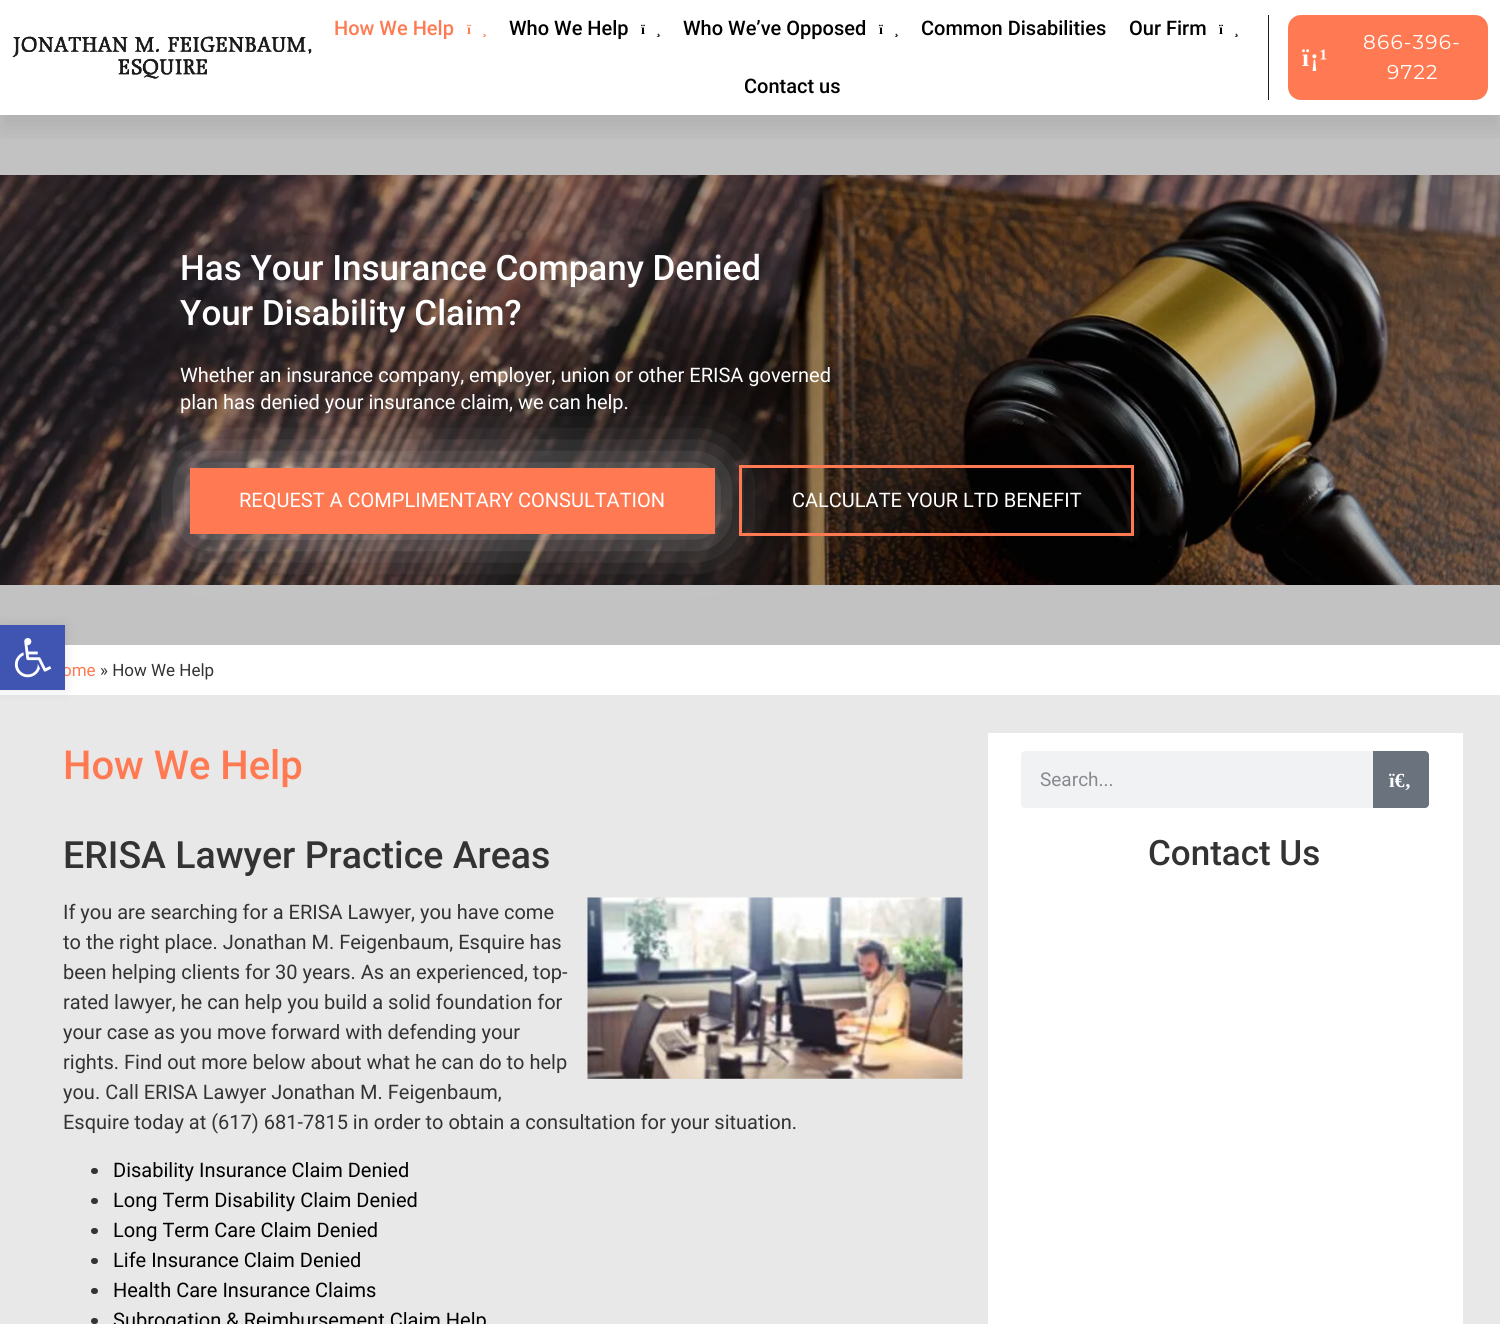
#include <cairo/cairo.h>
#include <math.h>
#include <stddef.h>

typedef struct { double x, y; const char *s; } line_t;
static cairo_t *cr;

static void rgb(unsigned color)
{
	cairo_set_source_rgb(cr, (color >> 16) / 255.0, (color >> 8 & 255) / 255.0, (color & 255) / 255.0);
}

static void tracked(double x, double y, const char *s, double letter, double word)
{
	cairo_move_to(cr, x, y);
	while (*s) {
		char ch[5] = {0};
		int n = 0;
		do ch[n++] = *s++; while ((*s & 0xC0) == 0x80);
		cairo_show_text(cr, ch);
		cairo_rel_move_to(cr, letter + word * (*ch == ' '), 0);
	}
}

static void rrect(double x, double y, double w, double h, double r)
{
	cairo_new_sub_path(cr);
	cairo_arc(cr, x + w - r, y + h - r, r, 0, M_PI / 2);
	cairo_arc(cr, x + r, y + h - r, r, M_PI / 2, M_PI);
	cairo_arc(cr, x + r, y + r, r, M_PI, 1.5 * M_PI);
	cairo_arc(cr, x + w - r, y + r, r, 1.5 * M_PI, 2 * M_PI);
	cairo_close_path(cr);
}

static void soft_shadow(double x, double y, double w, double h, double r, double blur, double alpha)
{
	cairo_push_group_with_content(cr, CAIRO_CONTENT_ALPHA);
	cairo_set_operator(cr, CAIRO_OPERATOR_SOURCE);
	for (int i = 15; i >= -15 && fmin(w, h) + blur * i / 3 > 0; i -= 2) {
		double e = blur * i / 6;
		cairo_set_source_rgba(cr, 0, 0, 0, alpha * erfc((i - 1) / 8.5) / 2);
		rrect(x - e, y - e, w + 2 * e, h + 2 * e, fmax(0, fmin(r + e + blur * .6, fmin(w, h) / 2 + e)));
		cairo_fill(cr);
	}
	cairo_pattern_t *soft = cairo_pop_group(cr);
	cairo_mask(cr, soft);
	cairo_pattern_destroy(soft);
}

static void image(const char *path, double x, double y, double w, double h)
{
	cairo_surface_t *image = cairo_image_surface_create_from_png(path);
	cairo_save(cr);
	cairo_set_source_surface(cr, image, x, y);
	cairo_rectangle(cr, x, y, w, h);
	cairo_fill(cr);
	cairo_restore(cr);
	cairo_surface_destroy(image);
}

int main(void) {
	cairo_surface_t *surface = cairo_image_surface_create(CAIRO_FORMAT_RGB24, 1500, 1324);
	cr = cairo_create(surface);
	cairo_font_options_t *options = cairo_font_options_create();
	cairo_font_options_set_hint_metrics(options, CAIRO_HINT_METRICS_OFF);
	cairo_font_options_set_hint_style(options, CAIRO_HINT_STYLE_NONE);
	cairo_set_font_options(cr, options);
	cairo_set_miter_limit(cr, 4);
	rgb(0xffffff);
	cairo_paint(cr);
	rgb(0xc2c2c2);
	cairo_rectangle(cr, 0, 115, 1500, 530);
	cairo_fill(cr);
	cairo_save(cr);
	cairo_rectangle(cr, 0, 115, 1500, 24);
	cairo_clip(cr);
	rgb(0x000000);
	soft_shadow(0, 13, 1500, 115, 0, 12.5, 0.1);
	cairo_restore(cr);
	image("img/1.png", 12, 36, 300, 43);
	rgb(0x1c1c1c);
	cairo_rectangle(cr, 1268, 15, 1, 85);
	cairo_fill(cr);
	rgb(0xff7a53);
	rrect(1288, 15, 200, 85, 13);
	cairo_fill(cr);
	rgb(0xe8e8e8);
	cairo_rectangle(cr, 0, 695, 1500, 629);
	cairo_fill(cr);
	rgb(0x000000);
	soft_shadow(0, 625, 65, 65, 0, 6, 0.1);
	image("img/3.png", 0, 175, 1500, 410);
	rgb(0xffffff);
	soft_shadow(190, 468, 525, 66, 0, 34.5, 0.5);
	rgb(0xff7a53);
	cairo_rectangle(cr, 190, 468, 525, 66);
	cairo_fill(cr);
	cairo_rectangle(cr, 740.5, 466.5, 392, 68);
	cairo_set_line_width(cr, 3);
	cairo_stroke(cr);
	image("img/4.png", 587, 897, 376, 182);
	rgb(0x333333);
	rrect(91, 1168, 7, 6, 3);
	cairo_fill(cr);
	rrect(91, 1198, 7, 6, 3);
	cairo_fill(cr);
	rrect(91, 1228, 7, 6, 3);
	cairo_fill(cr);
	rrect(91, 1258, 7, 6, 3);
	cairo_fill(cr);
	rrect(91, 1288, 7, 6, 3);
	cairo_fill(cr);
	rrect(91, 1318, 7, 6, 3);
	cairo_fill(cr);
	rgb(0xffffff);
	cairo_rectangle(cr, 988, 733, 475, 591);
	cairo_fill(cr);
	rgb(0xf1f2f3);
	rrect(1021, 751, 408, 57, 4);
	cairo_fill(cr);
	rgb(0x69727d);
	cairo_new_path(cr);
	cairo_move_to(cr, 1373, 751);
	cairo_line_to(cr, 1425, 751);
	cairo_curve_to(cr, 1427, 751, 1429, 753, 1429, 755);
	cairo_line_to(cr, 1429, 804);
	cairo_curve_to(cr, 1429, 806, 1427, 808, 1425, 808);
	cairo_line_to(cr, 1373, 808);
	cairo_close_path(cr);
	cairo_fill(cr);
	cairo_select_font_face(cr, "Roboto Medium", CAIRO_FONT_SLANT_NORMAL, CAIRO_FONT_WEIGHT_NORMAL);
	cairo_set_font_size(cr, 20);
	rgb(0xff7a53);
	cairo_move_to(cr, 334, 35);
	cairo_show_text(cr, "How We Help");
	cairo_select_font_face(cr, "Liberation Serif", CAIRO_FONT_SLANT_NORMAL, CAIRO_FONT_WEIGHT_BOLD);
	cairo_set_font_size(cr, 14);
	cairo_move_to(cr, 467, 34);
	cairo_show_text(cr, "ï");
	cairo_move_to(cr, 482, 34);
	cairo_show_text(cr, "¸");
	cairo_select_font_face(cr, "Roboto Medium", CAIRO_FONT_SLANT_NORMAL, CAIRO_FONT_WEIGHT_NORMAL);
	cairo_set_font_size(cr, 20);
	rgb(0x000000);
	cairo_move_to(cr, 509, 35);
	cairo_show_text(cr, "Who We Help");
	cairo_select_font_face(cr, "Liberation Serif", CAIRO_FONT_SLANT_NORMAL, CAIRO_FONT_WEIGHT_BOLD);
	cairo_set_font_size(cr, 14);
	cairo_move_to(cr, 641, 34);
	cairo_show_text(cr, "ï");
	cairo_move_to(cr, 656, 34);
	cairo_show_text(cr, "¸");
	cairo_select_font_face(cr, "Roboto Medium", CAIRO_FONT_SLANT_NORMAL, CAIRO_FONT_WEIGHT_NORMAL);
	cairo_set_font_size(cr, 20);
	cairo_move_to(cr, 683, 35);
	cairo_show_text(cr, "Who We’ve Opposed");
	cairo_select_font_face(cr, "Liberation Serif", CAIRO_FONT_SLANT_NORMAL, CAIRO_FONT_WEIGHT_BOLD);
	cairo_set_font_size(cr, 14);
	cairo_move_to(cr, 879, 34);
	cairo_show_text(cr, "ï");
	cairo_move_to(cr, 894, 34);
	cairo_show_text(cr, "¸");
	cairo_select_font_face(cr, "Roboto Medium", CAIRO_FONT_SLANT_NORMAL, CAIRO_FONT_WEIGHT_NORMAL);
	cairo_set_font_size(cr, 20);
	cairo_move_to(cr, 921, 35);
	cairo_show_text(cr, "Common Disabilities");
	cairo_move_to(cr, 1129, 35);
	cairo_show_text(cr, "Our Firm");
	cairo_select_font_face(cr, "Liberation Serif", CAIRO_FONT_SLANT_NORMAL, CAIRO_FONT_WEIGHT_BOLD);
	cairo_set_font_size(cr, 14);
	cairo_move_to(cr, 1219, 34);
	cairo_show_text(cr, "ï");
	cairo_move_to(cr, 1234, 34);
	cairo_show_text(cr, "¸");
	cairo_select_font_face(cr, "Roboto Medium", CAIRO_FONT_SLANT_NORMAL, CAIRO_FONT_WEIGHT_NORMAL);
	cairo_set_font_size(cr, 20);
	cairo_move_to(cr, 744, 93);
	cairo_show_text(cr, "Contact us");
	cairo_select_font_face(cr, "Liberation Serif", CAIRO_FONT_SLANT_NORMAL, CAIRO_FONT_WEIGHT_BOLD);
	cairo_set_font_size(cr, 25);
	rgb(0xffffff);
	tracked(1302, 66, "ï¡¹", 1.25, 0);
	cairo_select_font_face(cr, "Montserrat", CAIRO_FONT_SLANT_NORMAL, CAIRO_FONT_WEIGHT_NORMAL);
	cairo_set_font_size(cr, 20);
	tracked(1363, 49, "866-396-", 1.25, 0);
	tracked(1387, 79, "9722", 1.25, 0);
	cairo_select_font_face(cr, "Roboto Medium", CAIRO_FONT_SLANT_NORMAL, CAIRO_FONT_WEIGHT_NORMAL);
	cairo_set_font_size(cr, 35);
	cairo_move_to(cr, 180, 280);
	cairo_show_text(cr, "Has Your Insurance Company Denied");
	cairo_move_to(cr, 180, 325);
	cairo_show_text(cr, "Your Disability Claim?");
	cairo_select_font_face(cr, "Roboto", CAIRO_FONT_SLANT_NORMAL, CAIRO_FONT_WEIGHT_NORMAL);
	cairo_set_font_size(cr, 20);
	{
		static const line_t items[] = {
			{180, 382, "Whether an insurance company, employer, union or other ERISA governed"},
			{180, 409, "plan has denied your insurance claim, we can help."},
			{239, 507, "REQUEST A COMPLIMENTARY CONSULTATION"},
			{792, 507, "CALCULATE YOUR LTD BENEFIT"},
		};
		for (size_t i = 0; i < sizeof items / sizeof *items; i++) {
			cairo_move_to(cr, items[i].x, items[i].y);
			cairo_show_text(cr, items[i].s);
		}
	}
	cairo_set_font_size(cr, 17);
	rgb(0xff7a53);
	cairo_move_to(cr, 62, 676);
	cairo_show_text(cr, "ome");
	rgb(0x4054b2);
	cairo_rectangle(cr, 0, 625, 65, 65);
	cairo_fill(cr);
	image("img/2.png", 14, 638, 38, 40);
	rgb(0x333333);
	cairo_move_to(cr, 100, 676);
	cairo_show_text(cr, "» How We Help");
	cairo_select_font_face(cr, "Roboto Medium", CAIRO_FONT_SLANT_NORMAL, CAIRO_FONT_WEIGHT_NORMAL);
	cairo_set_font_size(cr, 40);
	rgb(0xff7a53);
	cairo_move_to(cr, 63, 779);
	cairo_show_text(cr, "How We Help");
	cairo_set_font_size(cr, 37.5);
	rgb(0x333333);
	cairo_move_to(cr, 63, 868);
	cairo_show_text(cr, "ERISA Lawyer Practice Areas");
	cairo_select_font_face(cr, "Roboto", CAIRO_FONT_SLANT_NORMAL, CAIRO_FONT_WEIGHT_NORMAL);
	cairo_set_font_size(cr, 20);
	{
		static const line_t items[] = {
			{63, 919, "If you are searching for a ERISA Lawyer, you have come"},
			{63, 949, "to the right place. Jonathan M. Feigenbaum, Esquire has"},
			{63, 979, "been helping clients for 30 years. As an experienced, top-"},
			{63, 1009, "rated lawyer, he can help you build a solid foundation for"},
			{63, 1039, "your case as you move forward with defending your"},
			{63, 1069, "rights. Find out more below about what he can do to help"},
			{63, 1099, "you. Call ERISA Lawyer Jonathan M. Feigenbaum,"},
			{63, 1129, "Esquire today at (617) 681-7815 in order to obtain a consultation for your situation."},
		};
		for (size_t i = 0; i < sizeof items / sizeof *items; i++) {
			cairo_move_to(cr, items[i].x, items[i].y);
			cairo_show_text(cr, items[i].s);
		}
	}
	rgb(0x000000);
	{
		static const line_t items[] = {
			{113, 1177, "Disability Insurance Claim Denied"},
			{113, 1207, "Long Term Disability Claim Denied"},
			{113, 1237, "Long Term Care Claim Denied"},
			{113, 1267, "Life Insurance Claim Denied"},
			{113, 1297, "Health Care Insurance Claims"},
			{113, 1327, "Subrogation & Reimbursement Claim Help"},
		};
		for (size_t i = 0; i < sizeof items / sizeof *items; i++) {
			cairo_move_to(cr, items[i].x, items[i].y);
			cairo_show_text(cr, items[i].s);
		}
	}
	cairo_set_font_size(cr, 19);
	rgb(0x868a8e);
	cairo_move_to(cr, 1040, 786);
	cairo_show_text(cr, "Search...");
	cairo_select_font_face(cr, "Liberation Serif", CAIRO_FONT_SLANT_NORMAL, CAIRO_FONT_WEIGHT_BOLD);
	cairo_set_font_size(cr, 20);
	rgb(0xffffff);
	cairo_move_to(cr, 1389, 787);
	cairo_show_text(cr, "ï€‚");
	cairo_select_font_face(cr, "Roboto Medium", CAIRO_FONT_SLANT_NORMAL, CAIRO_FONT_WEIGHT_NORMAL);
	cairo_set_font_size(cr, 35);
	rgb(0x333333);
	cairo_move_to(cr, 1148, 865);
	cairo_show_text(cr, "Contact Us");
	cairo_surface_write_to_png(surface, "page.png");
	cairo_font_options_destroy(options);
	cairo_destroy(cr);
	cairo_surface_destroy(surface);
	return 0;
}
